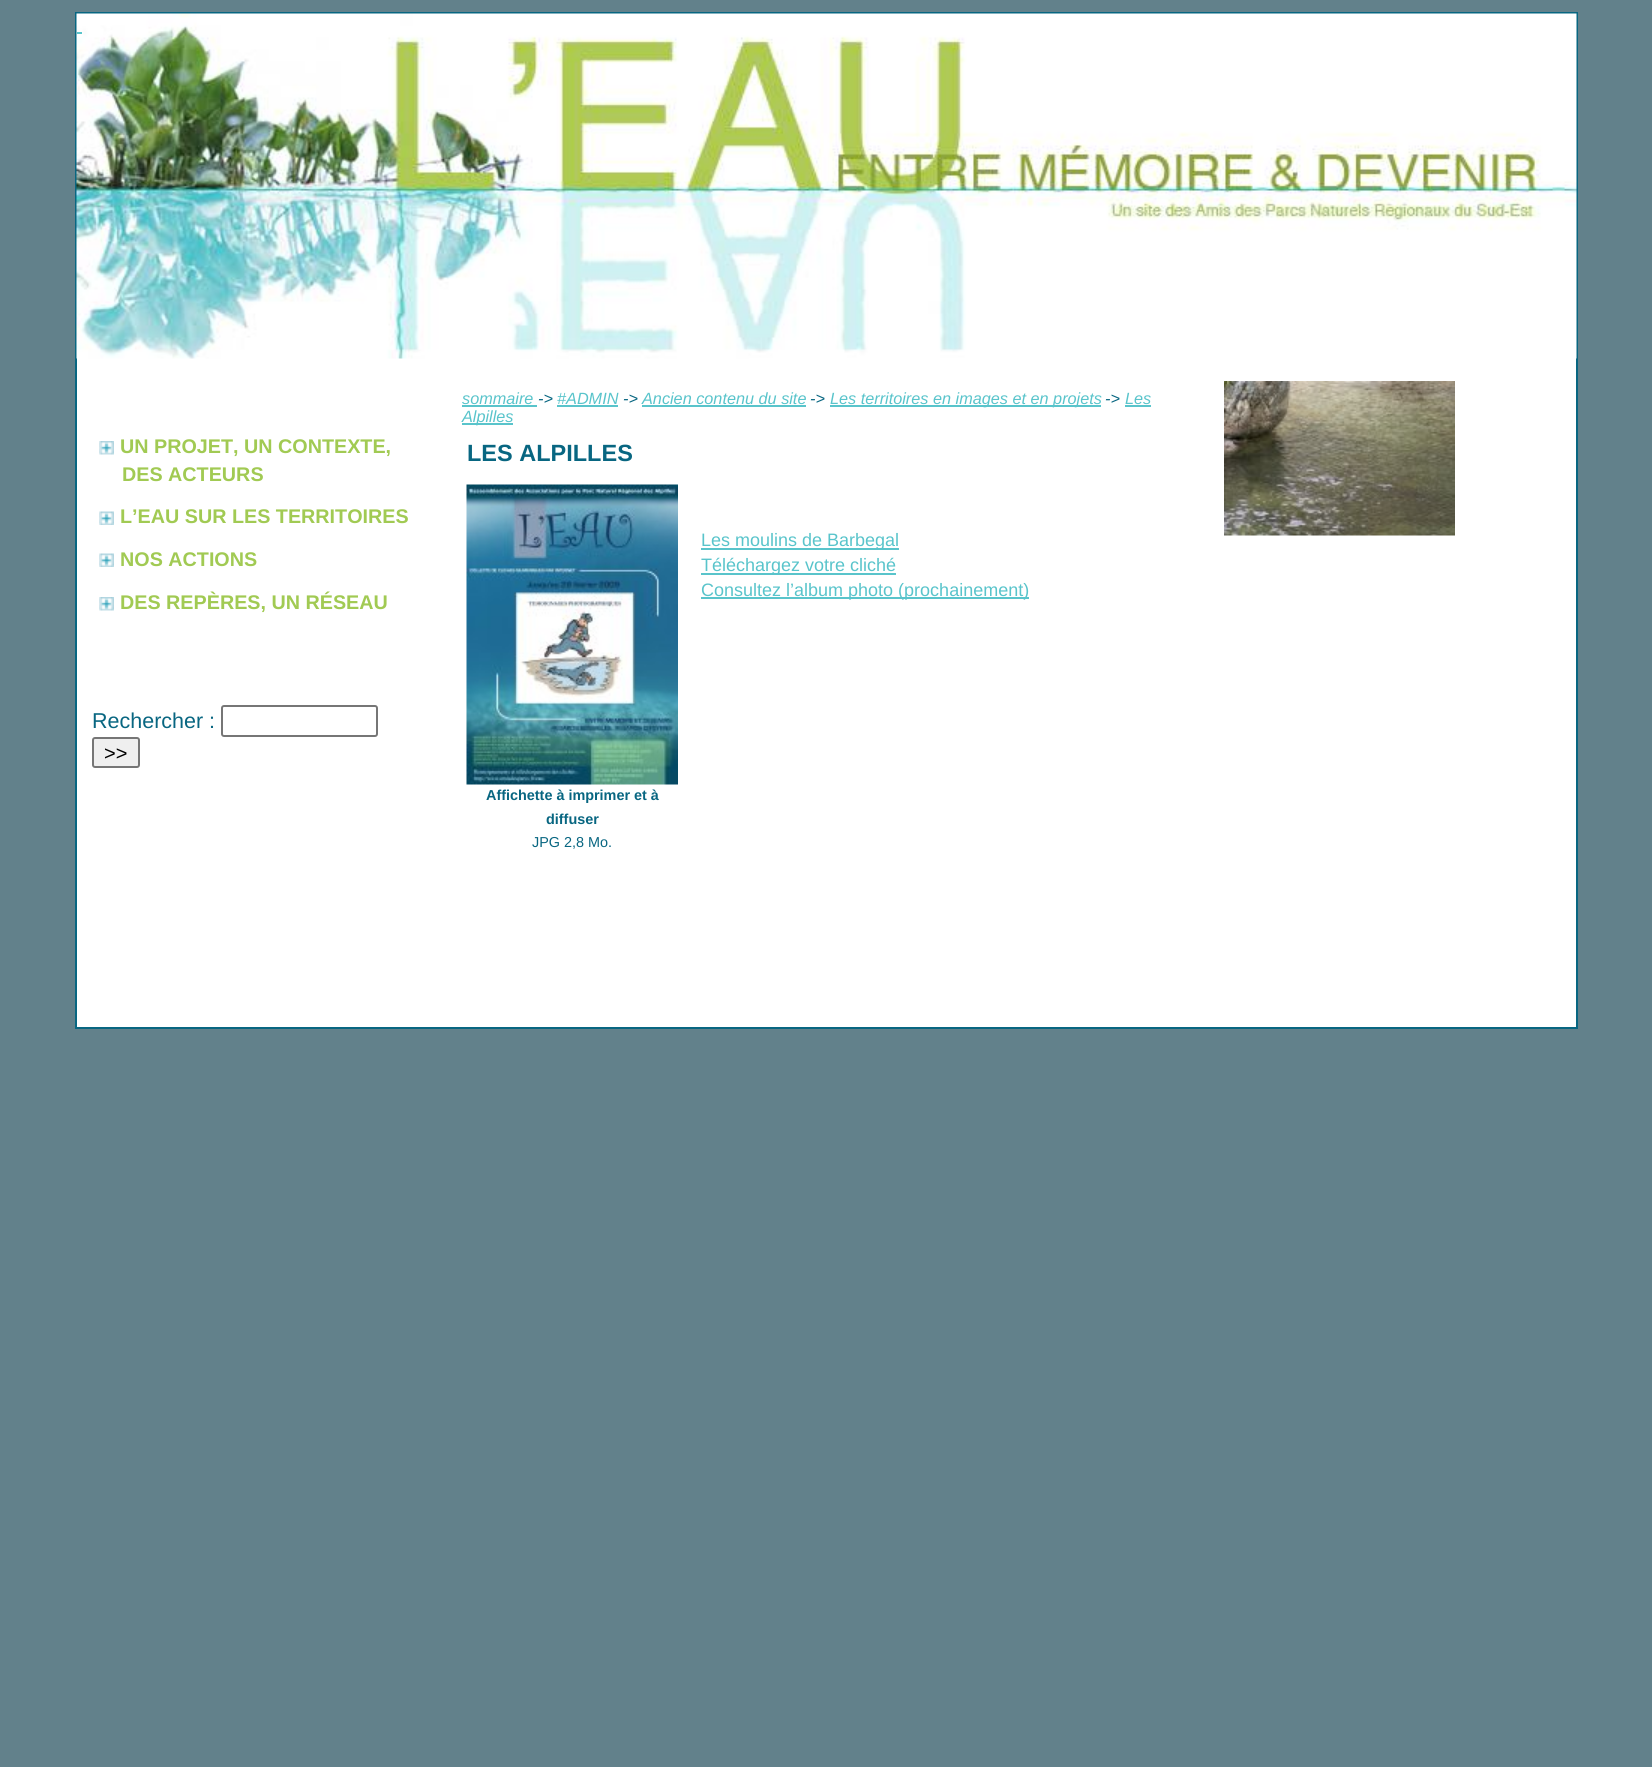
#include <cairo/cairo.h>
#include <math.h>
#include <stddef.h>

typedef struct { double x, y; const char *s; } line_t;
typedef struct { double x, y, w, h; unsigned color; } box_t;
static cairo_t *cr;

static void rgb(unsigned color)
{
	cairo_set_source_rgb(cr, (color >> 16) / 255.0, (color >> 8 & 255) / 255.0, (color & 255) / 255.0);
}

static void rrect(double x, double y, double w, double h, double r)
{
	cairo_new_sub_path(cr);
	cairo_arc(cr, x + w - r, y + h - r, r, 0, M_PI / 2);
	cairo_arc(cr, x + r, y + h - r, r, M_PI / 2, M_PI);
	cairo_arc(cr, x + r, y + r, r, M_PI, 1.5 * M_PI);
	cairo_arc(cr, x + w - r, y + r, r, 1.5 * M_PI, 2 * M_PI);
	cairo_close_path(cr);
}

static void image(const char *path, double x, double y, double w, double h)
{
	cairo_surface_t *image = cairo_image_surface_create_from_png(path);
	cairo_save(cr);
	cairo_set_source_surface(cr, image, x, y);
	cairo_rectangle(cr, x, y, w, h);
	cairo_fill(cr);
	cairo_restore(cr);
	cairo_surface_destroy(image);
}

int main(void) {
	cairo_surface_t *surface = cairo_image_surface_create(CAIRO_FORMAT_RGB24, 1652, 1767);
	cr = cairo_create(surface);
	cairo_font_options_t *options = cairo_font_options_create();
	cairo_font_options_set_hint_metrics(options, CAIRO_HINT_METRICS_OFF);
	cairo_font_options_set_hint_style(options, CAIRO_HINT_STYLE_NONE);
	cairo_set_font_options(cr, options);
	cairo_set_miter_limit(cr, 4);
	rgb(0x62818b);
	cairo_paint(cr);
	rgb(0xffffff);
	cairo_rectangle(cr, 77, 358, 1499, 669);
	cairo_fill(cr);
	cairo_rectangle(cr, 76, 13, 1501, 1015);
	rgb(0x086681);
	cairo_stroke(cr);
	image("img/1.png", 76, 13, 1501, 346);
	rgb(0x59c4cb);
	cairo_rectangle(cr, 77, 32, 5, 2);
	cairo_fill(cr);
	image("img/2.png", 99, 441, 15, 14);
	image("img/3.png", 99, 511, 15, 14);
	image("img/3.png", 99, 553, 15, 14);
	image("img/2.png", 99, 597, 15, 14);
	rrect(222, 706, 155, 30, 2);
	rgb(0x767676);
	cairo_stroke(cr);
	rgb(0xefefef);
	rrect(93, 738, 46, 29, 2);
	cairo_fill_preserve(cr);
	rgb(0x767676);
	cairo_stroke(cr);
	{
		static const box_t items[] = {
			{462, 405, 75, 2, 0x59c4cb},
			{557, 405, 61, 2, 0x59c4cb},
			{642, 405, 164, 2, 0x59c4cb},
			{830, 405, 271, 2, 0x59c4cb},
			{1125, 405, 26, 2, 0x59c4cb},
			{462, 423, 51, 2, 0x59c4cb},
			{701, 548, 198, 2, 0x59c4cb},
			{701, 573, 195, 2, 0x59c4cb},
			{701, 597, 328, 2, 0x59c4cb},
		};
		for (size_t i = 0; i < sizeof items / sizeof *items; i++) {
			rgb(items[i].color);
			cairo_rectangle(cr, items[i].x, items[i].y, items[i].w, items[i].h);
			cairo_fill(cr);
		}
	}
	image("img/4.png", 466, 484, 212, 301);
	image("img/5.png", 1224, 381, 231, 155);
	cairo_select_font_face(cr, "Liberation Sans", CAIRO_FONT_SLANT_NORMAL, CAIRO_FONT_WEIGHT_BOLD);
	cairo_set_font_size(cr, 19.75);
	rgb(0xa1ca53);
	{
		static const line_t items[] = {
			{120, 453, "UN PROJET, UN CONTEXTE,"},
			{122, 481, "DES ACTEURS"},
			{120, 523, "L’EAU SUR LES TERRITOIRES"},
			{120, 566, "NOS ACTIONS"},
			{120, 609, "DES REPÈRES, UN RÉSEAU"},
		};
		for (size_t i = 0; i < sizeof items / sizeof *items; i++) {
			cairo_move_to(cr, items[i].x, items[i].y);
			cairo_show_text(cr, items[i].s);
		}
	}
	cairo_select_font_face(cr, "Liberation Sans", CAIRO_FONT_SLANT_NORMAL, CAIRO_FONT_WEIGHT_NORMAL);
	cairo_set_font_size(cr, 21.5);
	rgb(0x086681);
	cairo_move_to(cr, 92, 728);
	cairo_show_text(cr, "Rechercher :");
	cairo_set_font_size(cr, 20);
	rgb(0x000000);
	cairo_move_to(cr, 104, 760);
	cairo_show_text(cr, ">>");
	cairo_select_font_face(cr, "Liberation Sans", CAIRO_FONT_SLANT_ITALIC, CAIRO_FONT_WEIGHT_NORMAL);
	cairo_set_font_size(cr, 16.25);
	rgb(0x59c4cb);
	cairo_move_to(cr, 462, 404);
	cairo_show_text(cr, "sommaire");
	rgb(0x086681);
	cairo_move_to(cr, 538, 404);
	cairo_show_text(cr, "->");
	rgb(0x59c4cb);
	cairo_move_to(cr, 557, 404);
	cairo_show_text(cr, "#ADMIN");
	rgb(0x086681);
	cairo_move_to(cr, 623, 404);
	cairo_show_text(cr, "->");
	rgb(0x59c4cb);
	cairo_move_to(cr, 642, 404);
	cairo_show_text(cr, "Ancien contenu du site");
	rgb(0x086681);
	cairo_move_to(cr, 810, 404);
	cairo_show_text(cr, "->");
	rgb(0x59c4cb);
	cairo_move_to(cr, 830, 404);
	cairo_show_text(cr, "Les territoires en images et en projets");
	rgb(0x086681);
	cairo_move_to(cr, 1105, 404);
	cairo_show_text(cr, "->");
	rgb(0x59c4cb);
	cairo_move_to(cr, 1125, 404);
	cairo_show_text(cr, "Les");
	cairo_move_to(cr, 462, 422);
	cairo_show_text(cr, "Alpilles");
	cairo_select_font_face(cr, "Liberation Sans", CAIRO_FONT_SLANT_NORMAL, CAIRO_FONT_WEIGHT_BOLD);
	cairo_set_font_size(cr, 23.5);
	rgb(0x086681);
	cairo_move_to(cr, 467, 461);
	cairo_show_text(cr, "LES ALPILLES");
	cairo_select_font_face(cr, "Liberation Sans", CAIRO_FONT_SLANT_NORMAL, CAIRO_FONT_WEIGHT_NORMAL);
	cairo_set_font_size(cr, 18);
	rgb(0x59c4cb);
	{
		static const line_t items[] = {
			{701, 546, "Les moulins de Barbegal"},
			{701, 571, "Téléchargez votre cliché"},
			{701, 596, "Consultez l’album photo (prochainement)"},
		};
		for (size_t i = 0; i < sizeof items / sizeof *items; i++) {
			cairo_move_to(cr, items[i].x, items[i].y);
			cairo_show_text(cr, items[i].s);
		}
	}
	cairo_select_font_face(cr, "Liberation Sans", CAIRO_FONT_SLANT_NORMAL, CAIRO_FONT_WEIGHT_BOLD);
	cairo_set_font_size(cr, 14.4);
	rgb(0x086681);
	cairo_move_to(cr, 486, 800);
	cairo_show_text(cr, "Affichette à imprimer et à");
	cairo_move_to(cr, 546, 824);
	cairo_show_text(cr, "diffuser");
	cairo_select_font_face(cr, "Liberation Sans", CAIRO_FONT_SLANT_NORMAL, CAIRO_FONT_WEIGHT_NORMAL);
	cairo_move_to(cr, 532, 847);
	cairo_show_text(cr, "JPG 2,8 Mo.");
	cairo_surface_write_to_png(surface, "page.png");
	cairo_font_options_destroy(options);
	cairo_destroy(cr);
	cairo_surface_destroy(surface);
	return 0;
}
